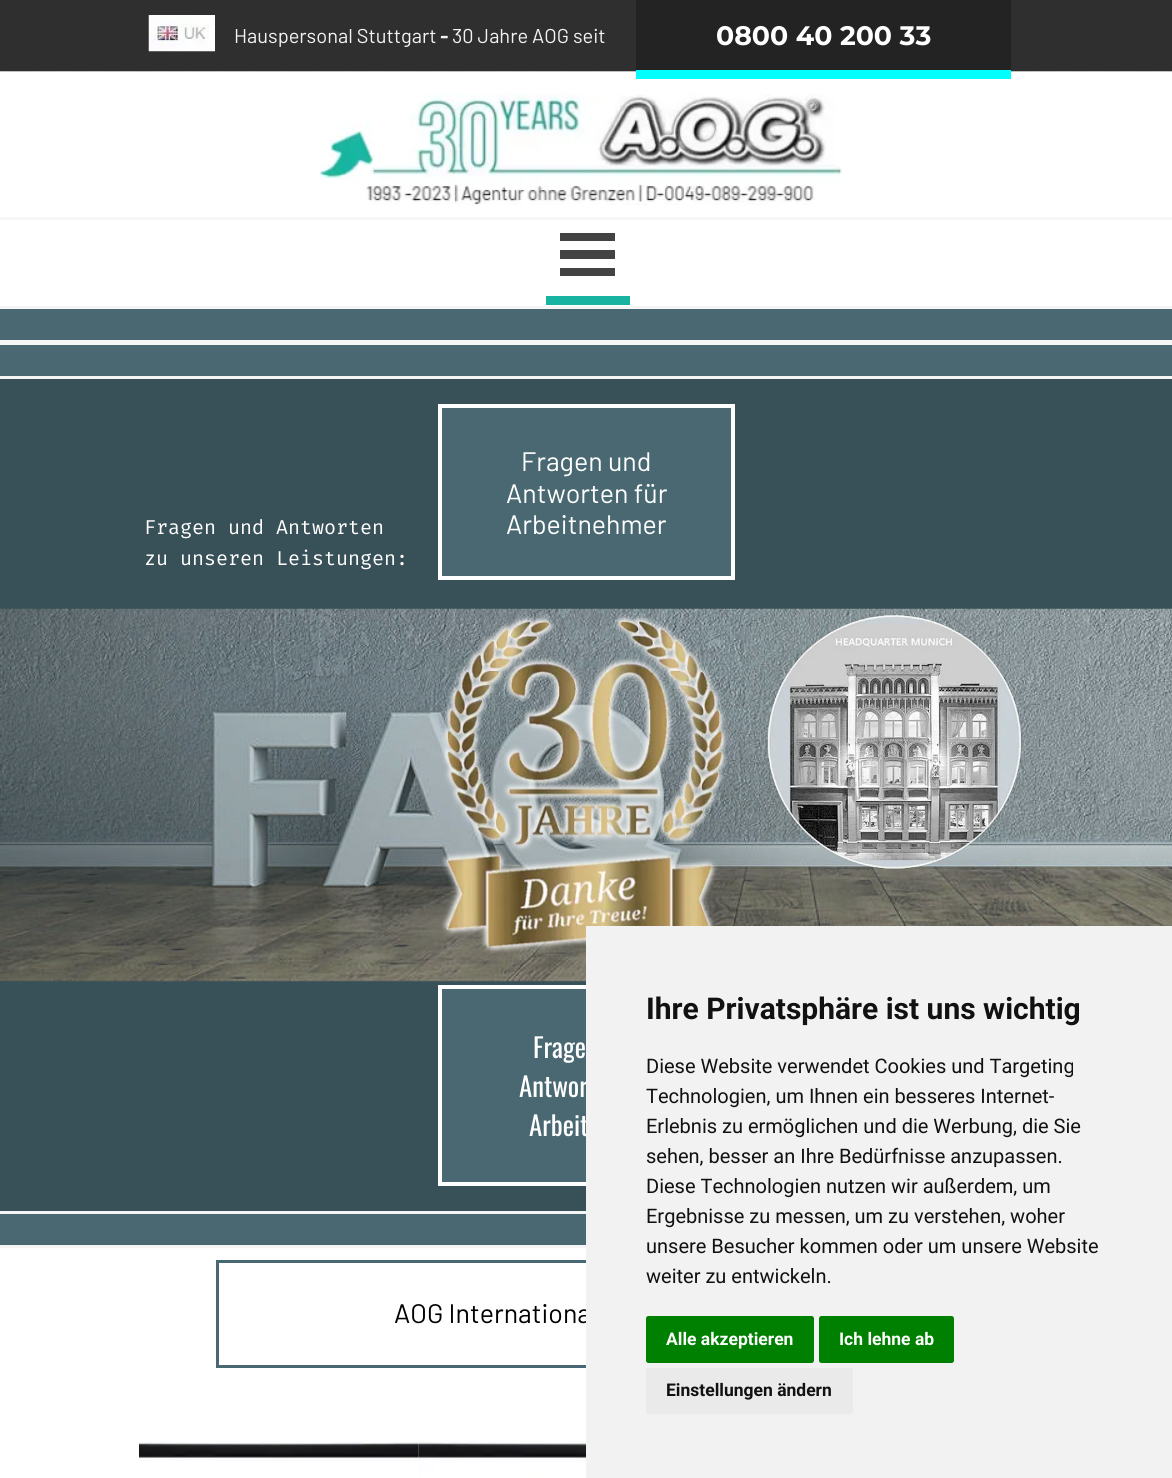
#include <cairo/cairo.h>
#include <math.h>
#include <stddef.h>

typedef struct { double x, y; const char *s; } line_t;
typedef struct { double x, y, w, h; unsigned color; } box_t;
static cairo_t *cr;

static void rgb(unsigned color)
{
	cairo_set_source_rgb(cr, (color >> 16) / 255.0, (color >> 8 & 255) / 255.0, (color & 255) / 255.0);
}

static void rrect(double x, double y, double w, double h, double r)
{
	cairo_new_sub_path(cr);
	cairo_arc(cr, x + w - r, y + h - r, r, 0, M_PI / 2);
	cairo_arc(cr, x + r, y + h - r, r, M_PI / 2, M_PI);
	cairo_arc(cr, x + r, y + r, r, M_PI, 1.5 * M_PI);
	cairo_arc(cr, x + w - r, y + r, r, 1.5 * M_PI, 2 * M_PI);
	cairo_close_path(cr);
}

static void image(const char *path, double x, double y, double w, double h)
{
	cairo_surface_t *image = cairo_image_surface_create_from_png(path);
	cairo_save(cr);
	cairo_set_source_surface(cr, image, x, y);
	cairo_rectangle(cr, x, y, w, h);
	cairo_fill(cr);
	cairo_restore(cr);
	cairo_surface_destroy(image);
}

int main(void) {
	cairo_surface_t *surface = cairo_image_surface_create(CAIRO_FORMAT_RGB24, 1172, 1478);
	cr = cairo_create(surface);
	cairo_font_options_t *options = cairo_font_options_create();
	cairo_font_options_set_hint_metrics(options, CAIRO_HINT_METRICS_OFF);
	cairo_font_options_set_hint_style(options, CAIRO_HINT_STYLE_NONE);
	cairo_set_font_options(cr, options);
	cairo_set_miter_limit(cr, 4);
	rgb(0xf5f5f5);
	cairo_paint(cr);
	rgb(0xffffff);
	cairo_rectangle(cr, 0, 71, 1172, 235);
	cairo_fill(cr);
	image("img/1.png", 0, 0, 1172, 220);
	image("img/2.png", 148, 15, 67, 37);
	rgb(0x232323);
	cairo_rectangle(cr, 636, 0, 375, 70);
	cairo_fill(cr);
	rgb(0x00ffff);
	cairo_rectangle(cr, 636, 70, 375, 9);
	cairo_fill(cr);
	image("img/3.png", 320, 93, 522, 112);
	{
		static const box_t items[] = {
			{546, 296, 84, 9, 0x19b4a1},
			{560, 233, 55, 8, 0x434343},
			{560, 250, 55, 9, 0x434343},
			{560, 268, 55, 8, 0x434343},
			{0, 309, 1172, 31, 0x496872},
			{0, 345, 1172, 31, 0x496872},
			{0, 379, 1172, 832, 0x385057},
		};
		for (size_t i = 0; i < sizeof items / sizeof *items; i++) {
			rgb(items[i].color);
			cairo_rectangle(cr, items[i].x, items[i].y, items[i].w, items[i].h);
			cairo_fill(cr);
		}
	}
	image("img/4.png", 0, 608, 1172, 374);
	rgb(0x496872);
	cairo_rectangle(cr, 440, 406, 293, 172);
	cairo_fill_preserve(cr);
	rgb(0xffffff);
	cairo_set_line_width(cr, 4);
	cairo_stroke(cr);
	image("img/5.png", 441, 614, 287, 339);
	image("img/6.png", 767, 614, 255, 255);
	rgb(0x496872);
	cairo_rectangle(cr, 442, 989, 144, 193);
	cairo_fill(cr);
	cairo_rectangle(cr, 440, 987, 293, 197);
	rgb(0xffffff);
	cairo_stroke(cr);
	rgb(0x496872);
	cairo_rectangle(cr, 0, 1214, 586, 31);
	cairo_fill(cr);
	rgb(0xffffff);
	cairo_rectangle(cr, 0, 1248, 586, 230);
	cairo_fill(cr);
	cairo_rectangle(cr, 217.5, 1261.5, 739, 105);
	rgb(0x486973);
	cairo_set_line_width(cr, 3);
	cairo_stroke(cr);
	image("img/7.png", 139, 1441, 280, 20);
	image("img/8.png", 418, 1441, 168, 37);
	cairo_select_font_face(cr, "Barlow", CAIRO_FONT_SLANT_NORMAL, CAIRO_FONT_WEIGHT_NORMAL);
	cairo_set_font_size(cr, 20);
	rgb(0xf3f3f3);
	cairo_move_to(cr, 234, 43);
	cairo_show_text(cr, "Hauspersonal Stuttgart");
	cairo_select_font_face(cr, "Barlow", CAIRO_FONT_SLANT_ITALIC, CAIRO_FONT_WEIGHT_BOLD);
	cairo_move_to(cr, 440, 43);
	cairo_show_text(cr, "-");
	cairo_select_font_face(cr, "Barlow", CAIRO_FONT_SLANT_NORMAL, CAIRO_FONT_WEIGHT_NORMAL);
	cairo_move_to(cr, 452, 43);
	cairo_show_text(cr, "30 Jahre AOG seit");
	cairo_select_font_face(cr, "Montserrat", CAIRO_FONT_SLANT_NORMAL, CAIRO_FONT_WEIGHT_BOLD);
	cairo_set_font_size(cr, 26.75);
	rgb(0xffffff);
	cairo_move_to(cr, 716, 45);
	cairo_show_text(cr, "0800 40 200 33");
	cairo_select_font_face(cr, "Barlow", CAIRO_FONT_SLANT_NORMAL, CAIRO_FONT_WEIGHT_NORMAL);
	{
		static const line_t items[] = {
			{521, 471, "Fragen und"},
			{506, 503, "Antworten für"},
			{506, 534, "Arbeitnehmer"},
		};
		for (size_t i = 0; i < sizeof items / sizeof *items; i++) {
			cairo_move_to(cr, items[i].x, items[i].y);
			cairo_show_text(cr, items[i].s);
		}
	}
	cairo_select_font_face(cr, "Fira Code", CAIRO_FONT_SLANT_NORMAL, CAIRO_FONT_WEIGHT_NORMAL);
	cairo_set_font_size(cr, 20);
	cairo_move_to(cr, 144, 534);
	cairo_show_text(cr, "Fragen und Antworten");
	cairo_move_to(cr, 144, 565);
	cairo_show_text(cr, "zu unseren Leistungen:");
	cairo_select_font_face(cr, "Oswald", CAIRO_FONT_SLANT_NORMAL, CAIRO_FONT_WEIGHT_NORMAL);
	cairo_set_font_size(cr, 26.75);
	{
		static const line_t items[] = {
			{533, 1058, "Frage"},
			{519, 1097, "Antwor"},
			{529, 1136, "Arbeit"},
		};
		for (size_t i = 0; i < sizeof items / sizeof *items; i++) {
			cairo_move_to(cr, items[i].x, items[i].y);
			cairo_show_text(cr, items[i].s);
		}
	}
	cairo_select_font_face(cr, "Barlow", CAIRO_FONT_SLANT_NORMAL, CAIRO_FONT_WEIGHT_NORMAL);
	rgb(0x000000);
	cairo_move_to(cr, 394, 1323);
	cairo_show_text(cr, "AOG Internationa");
	rgb(0xf2f2f2);
	cairo_rectangle(cr, 586, 926, 586, 552);
	cairo_fill(cr);
	cairo_select_font_face(cr, "Roboto", CAIRO_FONT_SLANT_NORMAL, CAIRO_FONT_WEIGHT_BOLD);
	cairo_set_font_size(cr, 30);
	rgb(0x111111);
	cairo_move_to(cr, 646, 1019);
	cairo_show_text(cr, "Ihre Privatsphäre ist uns wichtig");
	cairo_select_font_face(cr, "Roboto", CAIRO_FONT_SLANT_NORMAL, CAIRO_FONT_WEIGHT_NORMAL);
	cairo_set_font_size(cr, 20);
	{
		static const line_t items[] = {
			{646, 1073, "Diese Website verwendet Cookies und Targeting"},
			{646, 1103, "Technologien, um Ihnen ein besseres Internet-"},
			{646, 1133, "Erlebnis zu ermöglichen und die Werbung, die Sie"},
			{646, 1163, "sehen, besser an Ihre Bedürfnisse anzupassen."},
			{646, 1193, "Diese Technologien nutzen wir außerdem, um"},
			{646, 1223, "Ergebnisse zu messen, um zu verstehen, woher"},
			{646, 1253, "unsere Besucher kommen oder um unsere Website"},
			{646, 1283, "weiter zu entwickeln."},
		};
		for (size_t i = 0; i < sizeof items / sizeof *items; i++) {
			cairo_move_to(cr, items[i].x, items[i].y);
			cairo_show_text(cr, items[i].s);
		}
	}
	rgb(0x008000);
	rrect(646, 1316, 168, 47, 2.5);
	cairo_fill(cr);
	cairo_select_font_face(cr, "Roboto", CAIRO_FONT_SLANT_NORMAL, CAIRO_FONT_WEIGHT_BOLD);
	cairo_set_font_size(cr, 17.5);
	rgb(0xffffff);
	cairo_move_to(cr, 666, 1345);
	cairo_show_text(cr, "Alle akzeptieren");
	rgb(0x008000);
	rrect(819, 1316, 135, 47, 2.5);
	cairo_fill(cr);
	rgb(0xffffff);
	cairo_move_to(cr, 839, 1345);
	cairo_show_text(cr, "Ich lehne ab");
	rgb(0xeaeaea);
	rrect(646, 1368, 207, 46, 2.5);
	cairo_fill(cr);
	rgb(0x111111);
	cairo_move_to(cr, 666, 1396);
	cairo_show_text(cr, "Einstellungen ändern");
	cairo_surface_write_to_png(surface, "page.png");
	cairo_font_options_destroy(options);
	cairo_destroy(cr);
	cairo_surface_destroy(surface);
	return 0;
}
